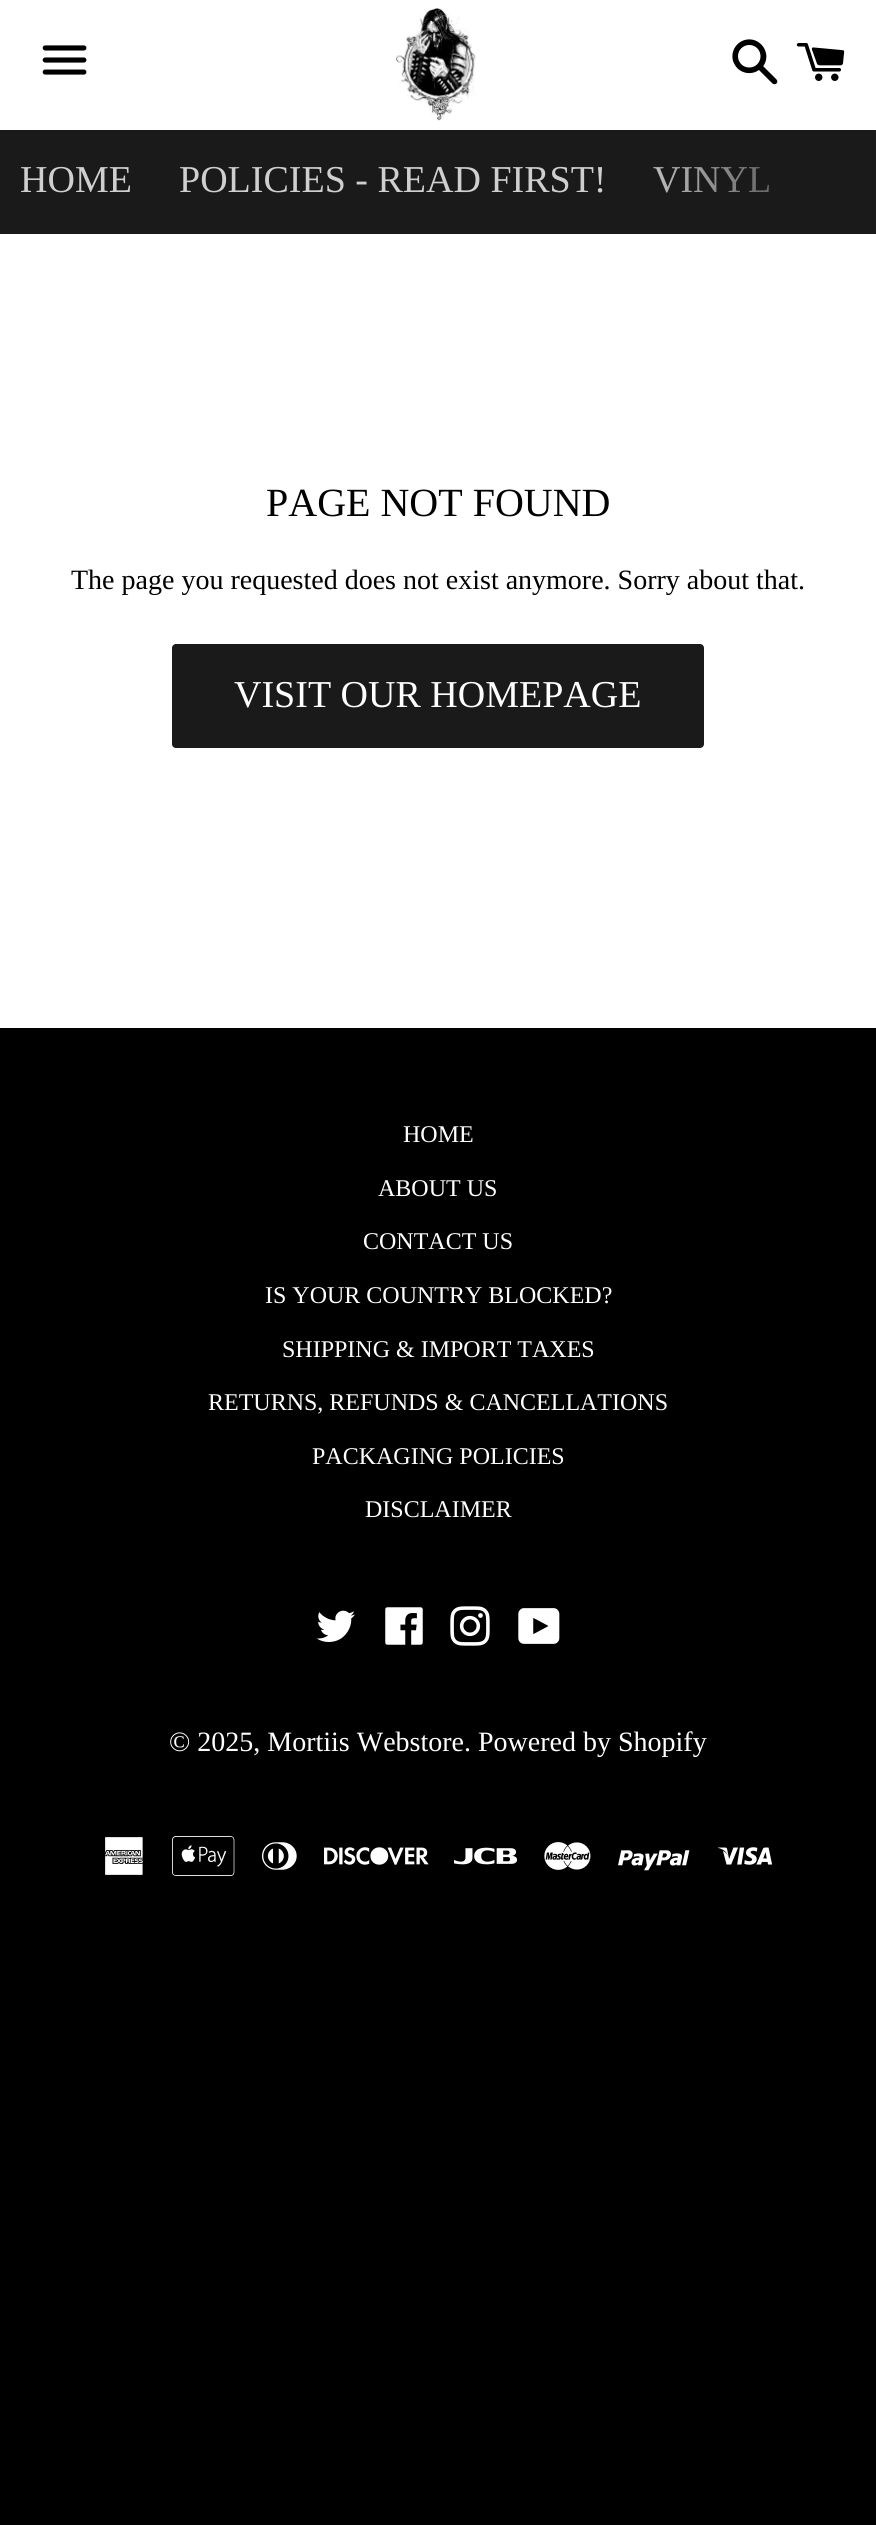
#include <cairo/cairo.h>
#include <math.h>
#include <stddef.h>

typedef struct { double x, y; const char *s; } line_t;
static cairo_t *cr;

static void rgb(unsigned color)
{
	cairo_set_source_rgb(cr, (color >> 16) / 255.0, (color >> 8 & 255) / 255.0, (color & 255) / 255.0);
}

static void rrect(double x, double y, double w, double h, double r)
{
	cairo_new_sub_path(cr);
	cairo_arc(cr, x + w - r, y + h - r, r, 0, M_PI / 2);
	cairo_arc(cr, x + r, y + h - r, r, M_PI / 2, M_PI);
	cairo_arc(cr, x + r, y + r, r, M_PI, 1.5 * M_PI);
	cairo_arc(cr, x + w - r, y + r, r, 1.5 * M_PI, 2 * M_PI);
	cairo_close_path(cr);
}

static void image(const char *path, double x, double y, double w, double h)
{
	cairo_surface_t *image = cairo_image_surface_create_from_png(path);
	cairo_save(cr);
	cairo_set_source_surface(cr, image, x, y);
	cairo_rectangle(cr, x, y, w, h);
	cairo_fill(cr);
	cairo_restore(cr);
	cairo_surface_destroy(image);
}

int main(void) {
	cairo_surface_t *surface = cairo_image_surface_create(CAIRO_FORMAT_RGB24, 876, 2525);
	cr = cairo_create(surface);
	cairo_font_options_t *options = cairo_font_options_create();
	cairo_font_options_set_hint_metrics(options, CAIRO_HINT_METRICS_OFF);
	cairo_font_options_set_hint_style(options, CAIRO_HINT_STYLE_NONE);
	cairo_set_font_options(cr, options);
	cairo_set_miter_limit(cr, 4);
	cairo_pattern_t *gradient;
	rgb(0x000000);
	cairo_paint(cr);
	rgb(0xffffff);
	cairo_rectangle(cr, 0, 0, 876, 1028);
	cairo_fill(cr);
	image("img/1.png", 42, 45, 45, 30);
	image("img/2.png", 394, 8, 82, 113);
	image("img/3.png", 732, 39, 46, 46);
	image("img/4.png", 796, 43, 49, 38);
	rgb(0x1a1a1a);
	cairo_rectangle(cr, 0, 130, 875, 104);
	cairo_fill(cr);
	rrect(172, 644, 532, 104, 4);
	cairo_fill(cr);
	image("img/5.png", 316, 1610, 39, 32);
	image("img/6.png", 385, 1607, 38, 38);
	image("img/7.png", 450, 1606, 40, 40);
	image("img/8.png", 518, 1608, 42, 36);
	image("img/9.png", 105, 1837, 38, 38);
	image("img/10.png", 172, 1836, 63, 40);
	image("img/11.png", 262, 1842, 35, 28);
	image("img/12.png", 324, 1847, 105, 18);
	image("img/13.png", 454, 1847, 63, 18);
	image("img/14.png", 544, 1842, 47, 28);
	image("img/15.png", 618, 1850, 72, 21);
	image("img/16.png", 718, 1847, 55, 18);
	cairo_select_font_face(cr, "Liberation Serif", CAIRO_FONT_SLANT_NORMAL, CAIRO_FONT_WEIGHT_NORMAL);
	cairo_set_font_size(cr, 38);
	rgb(0xcfcfcf);
	{
		static const line_t items[] = {
			{20, 192, "HOME"},
			{179, 192, "POLICIES - READ FIRST!"},
			{653, 192, "VINYL"},
		};
		for (size_t i = 0; i < sizeof items / sizeof *items; i++) {
			cairo_move_to(cr, items[i].x, items[i].y);
			cairo_show_text(cr, items[i].s);
		}
	}
	gradient = cairo_pattern_create_linear(626, 182, 876, 182);
	cairo_pattern_add_color_stop_rgba(gradient, 0, 0.102, 0.102, 0.102, 0);
	cairo_pattern_add_color_stop_rgba(gradient, 1, 0.102, 0.102, 0.102, 1);
	cairo_set_source(cr, gradient);
	cairo_pattern_destroy(gradient);
	cairo_rectangle(cr, 654, 130, 222, 104);
	cairo_fill(cr);
	cairo_set_font_size(cr, 40);
	rgb(0x000000);
	cairo_move_to(cr, 266, 516);
	cairo_show_text(cr, "PAGE NOT FOUND");
	cairo_set_font_size(cr, 28);
	cairo_move_to(cr, 71, 589);
	cairo_show_text(cr, "The page you requested does not exist anymore. Sorry about that.");
	cairo_set_font_size(cr, 38);
	rgb(0xffffff);
	cairo_move_to(cr, 234, 707);
	cairo_show_text(cr, "VISIT OUR HOMEPAGE");
	cairo_set_font_size(cr, 24);
	{
		static const line_t items[] = {
			{403, 1142, "HOME"},
			{378, 1196, "ABOUT US"},
			{363, 1249, "CONTACT US"},
			{265, 1303, "IS YOUR COUNTRY BLOCKED?"},
			{282, 1357, "SHIPPING & IMPORT TAXES"},
			{208, 1410, "RETURNS, REFUNDS & CANCELLATIONS"},
			{312, 1464, "PACKAGING POLICIES"},
			{365, 1517, "DISCLAIMER"},
		};
		for (size_t i = 0; i < sizeof items / sizeof *items; i++) {
			cairo_move_to(cr, items[i].x, items[i].y);
			cairo_show_text(cr, items[i].s);
		}
	}
	cairo_set_font_size(cr, 28);
	cairo_move_to(cr, 169, 1751);
	cairo_show_text(cr, "© 2025, Mortiis Webstore. Powered by Shopify");
	cairo_surface_write_to_png(surface, "page.png");
	cairo_font_options_destroy(options);
	cairo_destroy(cr);
	cairo_surface_destroy(surface);
	return 0;
}
